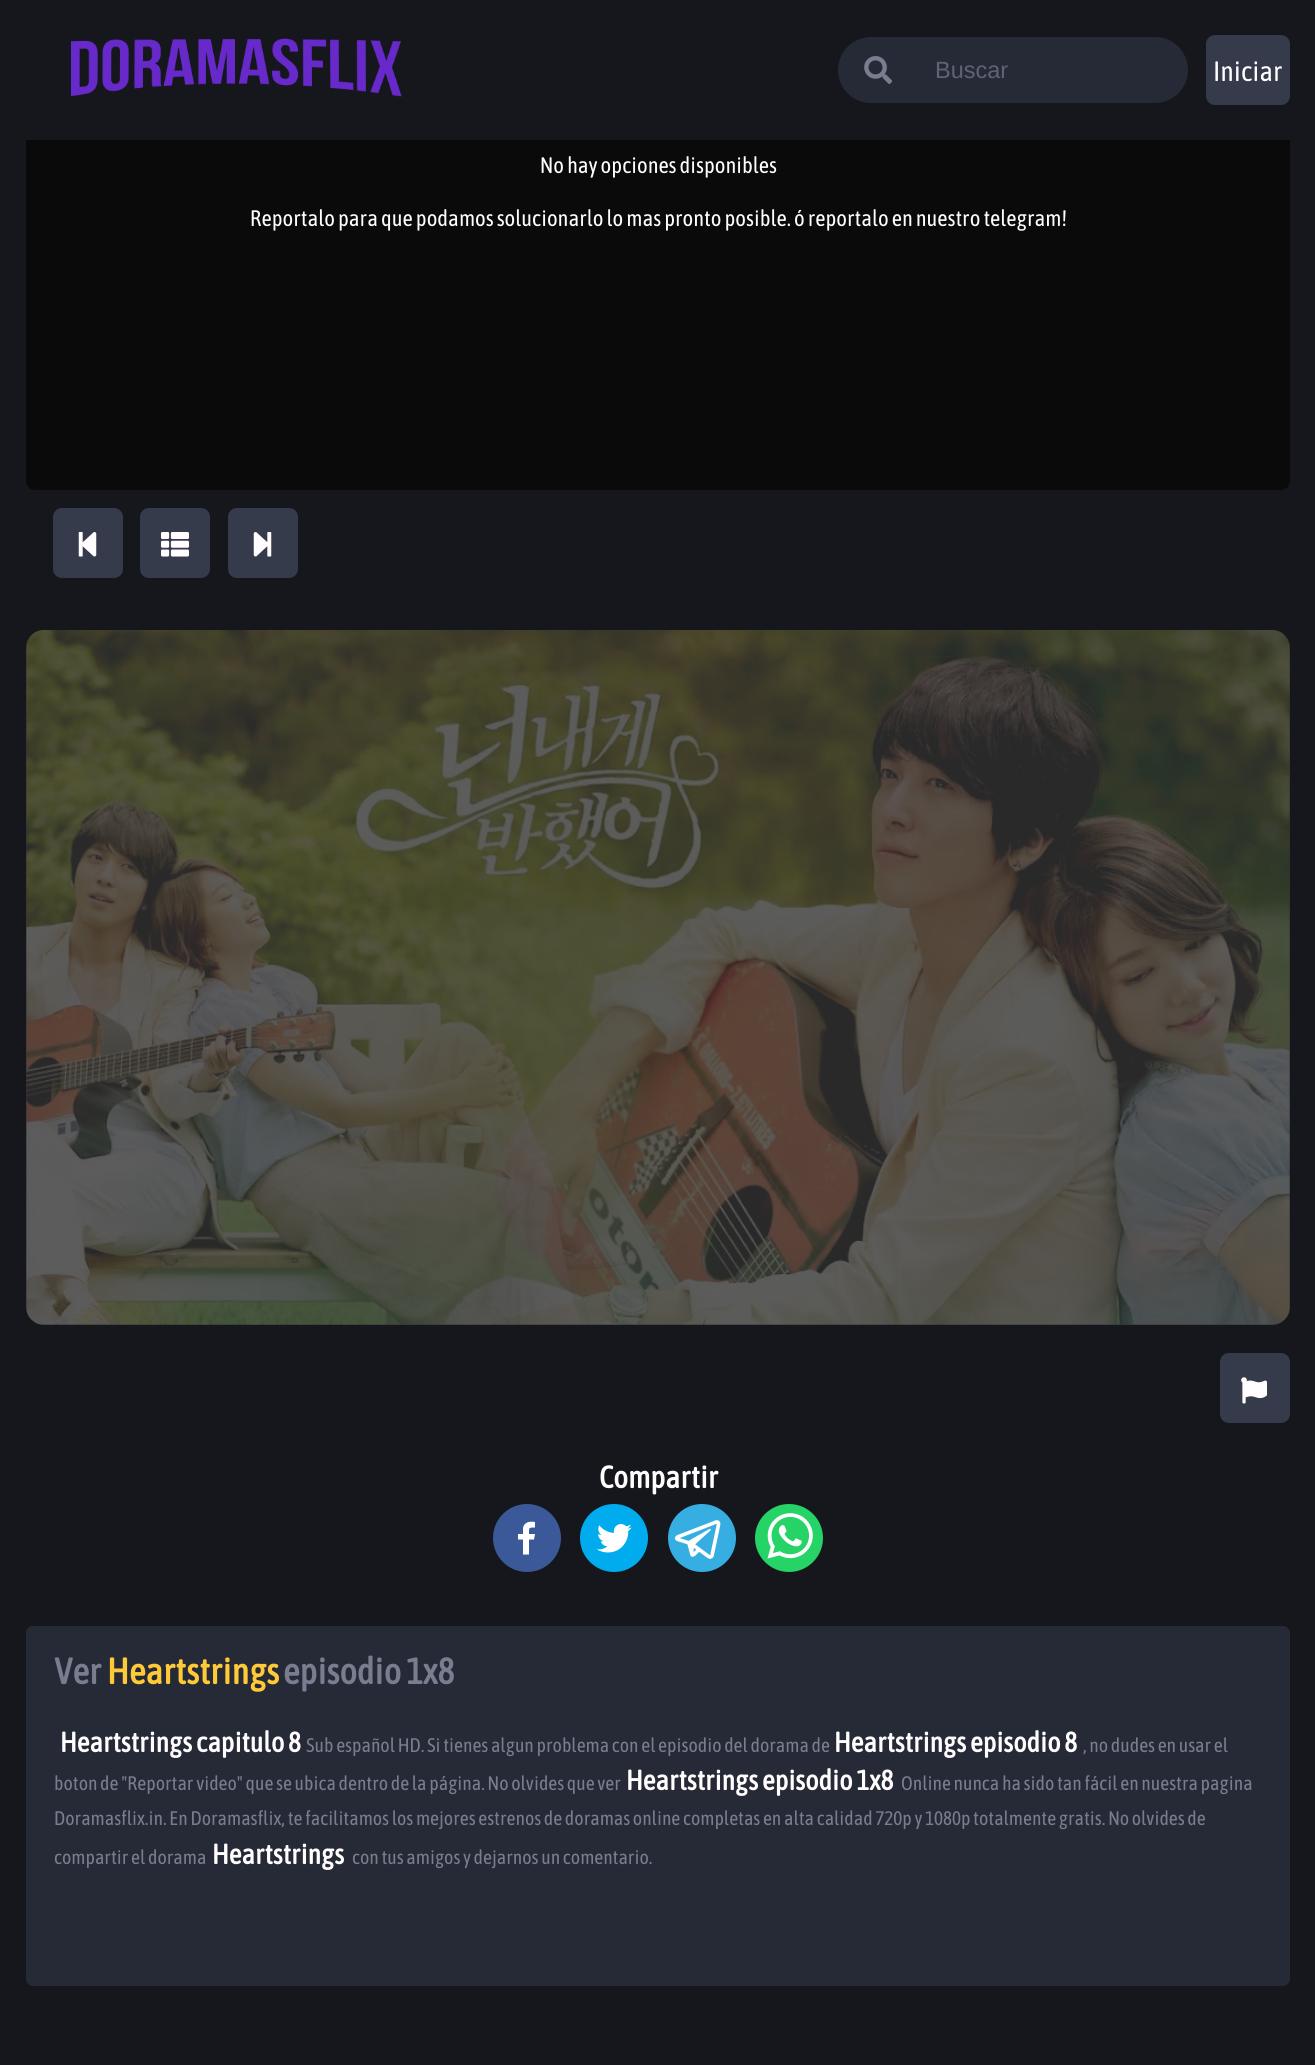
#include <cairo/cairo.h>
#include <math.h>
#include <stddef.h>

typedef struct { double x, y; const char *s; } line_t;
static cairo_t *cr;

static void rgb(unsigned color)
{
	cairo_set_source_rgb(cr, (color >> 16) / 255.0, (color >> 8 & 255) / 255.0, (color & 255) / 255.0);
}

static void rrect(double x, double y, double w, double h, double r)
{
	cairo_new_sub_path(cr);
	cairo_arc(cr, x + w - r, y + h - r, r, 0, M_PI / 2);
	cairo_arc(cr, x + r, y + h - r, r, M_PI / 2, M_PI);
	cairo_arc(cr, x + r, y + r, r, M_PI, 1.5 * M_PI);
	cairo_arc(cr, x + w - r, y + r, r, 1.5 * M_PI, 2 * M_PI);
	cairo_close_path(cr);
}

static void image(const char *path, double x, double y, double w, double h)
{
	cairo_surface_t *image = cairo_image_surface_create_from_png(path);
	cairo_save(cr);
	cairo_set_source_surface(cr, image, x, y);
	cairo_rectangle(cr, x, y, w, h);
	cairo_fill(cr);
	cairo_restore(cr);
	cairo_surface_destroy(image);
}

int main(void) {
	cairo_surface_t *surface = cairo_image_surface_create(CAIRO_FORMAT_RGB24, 1315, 2065);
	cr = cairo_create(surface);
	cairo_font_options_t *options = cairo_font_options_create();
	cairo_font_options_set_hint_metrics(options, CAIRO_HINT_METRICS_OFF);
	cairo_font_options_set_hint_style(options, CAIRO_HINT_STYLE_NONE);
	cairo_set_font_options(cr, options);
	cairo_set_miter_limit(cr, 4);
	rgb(0x15171c);
	cairo_paint(cr);
	rgb(0x0a0a0a);
	rrect(26, -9, 1264, 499, 9);
	cairo_fill(cr);
	rgb(0x15171c);
	cairo_rectangle(cr, 26, 0, 1264, 140);
	cairo_fill(cr);
	image("img/1.png", 71, 38, 331, 59);
	rgb(0x262a36);
	rrect(838, 37, 350, 66, 33);
	cairo_fill(cr);
	image("img/2.png", 864, 56, 29, 28);
	rgb(0x353b4b);
	rrect(1206, 35, 84, 70, 9);
	cairo_fill(cr);
	rrect(53, 508, 70, 70, 9);
	cairo_fill(cr);
	image("img/3.png", 78, 532, 19, 25);
	rrect(140, 508, 70, 70, 9);
	cairo_fill(cr);
	image("img/4.png", 161, 532, 28, 25);
	rrect(228, 508, 70, 70, 9);
	cairo_fill(cr);
	image("img/5.png", 253, 532, 19, 25);
	rgb(0x333333);
	rrect(26, 630, 1264, 695, 18);
	cairo_fill(cr);
	image("img/6.png", 26, 630, 1264, 695);
	rgb(0x353b4b);
	rrect(1220, 1353, 70, 70, 9);
	cairo_fill(cr);
	image("img/7.png", 1241, 1377, 26, 27);
	rgb(0x3b5998);
	cairo_arc(cr, 527, 1538, 34, 0, 2 * M_PI);
	cairo_fill(cr);
	rgb(0xffffff);
	cairo_new_path(cr);
	cairo_move_to(cr, 529, 1554.5);
	cairo_line_to(cr, 529, 1539.5);
	cairo_line_to(cr, 534, 1539.5);
	cairo_line_to(cr, 535, 1534);
	cairo_line_to(cr, 529, 1534);
	cairo_curve_to(cr, 529, 1527.5, 528.5, 1527.5, 535, 1527.5);
	cairo_line_to(cr, 535, 1522);
	cairo_curve_to(cr, 530, 1521, 524, 1522, 523, 1528);
	cairo_line_to(cr, 523, 1534);
	cairo_line_to(cr, 518, 1534);
	cairo_line_to(cr, 518, 1539.5);
	cairo_line_to(cr, 523, 1539.5);
	cairo_line_to(cr, 523, 1554.5);
	cairo_close_path(cr);
	cairo_fill(cr);
	image("img/8.png", 580, 1504, 68, 68);
	image("img/9.png", 668, 1504, 68, 68);
	image("img/10.png", 755, 1504, 68, 68);
	rgb(0x262a36);
	rrect(26, 1626, 1264, 360, 7);
	cairo_fill(cr);
	cairo_select_font_face(cr, "Liberation Sans", CAIRO_FONT_SLANT_NORMAL, CAIRO_FONT_WEIGHT_NORMAL);
	cairo_set_font_size(cr, 23.5);
	rgb(0x5f6474);
	cairo_move_to(cr, 935, 78);
	cairo_show_text(cr, "Buscar");
	cairo_select_font_face(cr, "Asap Condensed", CAIRO_FONT_SLANT_NORMAL, CAIRO_FONT_WEIGHT_NORMAL);
	cairo_set_font_size(cr, 28);
	rgb(0xfffdfd);
	cairo_move_to(cr, 1213, 81);
	cairo_show_text(cr, "Iniciar");
	cairo_set_font_size(cr, 22.4);
	cairo_move_to(cr, 540, 173);
	cairo_show_text(cr, "No hay opciones disponibles");
	cairo_move_to(cr, 250, 226);
	cairo_show_text(cr, "Reportalo para que podamos solucionarlo lo mas pronto posible. ó reportalo en nuestro telegram!");
	cairo_select_font_face(cr, "Asap Condensed", CAIRO_FONT_SLANT_NORMAL, CAIRO_FONT_WEIGHT_BOLD);
	cairo_set_font_size(cr, 31);
	cairo_move_to(cr, 599, 1488);
	cairo_show_text(cr, "Compartir");
	cairo_set_font_size(cr, 36.5);
	rgb(0x787d8f);
	cairo_move_to(cr, 54, 1684);
	cairo_show_text(cr, "Ver");
	rgb(0xffca37);
	cairo_move_to(cr, 107, 1684);
	cairo_show_text(cr, "Heartstrings");
	rgb(0x787d8f);
	cairo_move_to(cr, 283, 1684);
	cairo_show_text(cr, "episodio 1x8");
	cairo_set_font_size(cr, 28);
	rgb(0xfffdfd);
	cairo_move_to(cr, 60, 1752);
	cairo_show_text(cr, "Heartstrings capitulo 8");
	cairo_select_font_face(cr, "Asap Condensed", CAIRO_FONT_SLANT_NORMAL, CAIRO_FONT_WEIGHT_NORMAL);
	cairo_set_font_size(cr, 19.6);
	rgb(0x787d8f);
	cairo_move_to(cr, 306, 1752);
	cairo_show_text(cr, "Sub español HD. Si tienes algun problema con el episodio del dorama de");
	cairo_select_font_face(cr, "Asap Condensed", CAIRO_FONT_SLANT_NORMAL, CAIRO_FONT_WEIGHT_BOLD);
	cairo_set_font_size(cr, 28);
	rgb(0xfffdfd);
	cairo_move_to(cr, 834, 1752);
	cairo_show_text(cr, "Heartstrings episodio 8");
	cairo_select_font_face(cr, "Asap Condensed", CAIRO_FONT_SLANT_NORMAL, CAIRO_FONT_WEIGHT_NORMAL);
	cairo_set_font_size(cr, 19.6);
	rgb(0x787d8f);
	cairo_move_to(cr, 1083, 1752);
	cairo_show_text(cr, ", no dudes en usar el");
	cairo_move_to(cr, 54, 1790);
	cairo_show_text(cr, "boton de \"Reportar video\" que se ubica dentro de la página. No olvides que ver");
	cairo_select_font_face(cr, "Asap Condensed", CAIRO_FONT_SLANT_NORMAL, CAIRO_FONT_WEIGHT_BOLD);
	cairo_set_font_size(cr, 28);
	rgb(0xfffdfd);
	cairo_move_to(cr, 626, 1790);
	cairo_show_text(cr, "Heartstrings episodio 1x8");
	cairo_select_font_face(cr, "Asap Condensed", CAIRO_FONT_SLANT_NORMAL, CAIRO_FONT_WEIGHT_NORMAL);
	cairo_set_font_size(cr, 19.6);
	rgb(0x787d8f);
	{
		static const line_t items[] = {
			{901, 1790, "Online nunca ha sido tan fácil en nuestra pagina"},
			{54, 1825, "Doramasflix.in. En Doramasflix, te facilitamos los mejores estrenos de doramas online completas en alta calidad 720p y 1080p totalmente gratis. No olvides de"},
			{54, 1864, "compartir el dorama"},
		};
		for (size_t i = 0; i < sizeof items / sizeof *items; i++) {
			cairo_move_to(cr, items[i].x, items[i].y);
			cairo_show_text(cr, items[i].s);
		}
	}
	cairo_select_font_face(cr, "Asap Condensed", CAIRO_FONT_SLANT_NORMAL, CAIRO_FONT_WEIGHT_BOLD);
	cairo_set_font_size(cr, 28);
	rgb(0xfffdfd);
	cairo_move_to(cr, 212, 1864);
	cairo_show_text(cr, "Heartstrings");
	cairo_select_font_face(cr, "Asap Condensed", CAIRO_FONT_SLANT_NORMAL, CAIRO_FONT_WEIGHT_NORMAL);
	cairo_set_font_size(cr, 19.6);
	rgb(0x787d8f);
	cairo_move_to(cr, 352, 1864);
	cairo_show_text(cr, "con tus amigos y dejarnos un comentario.");
	cairo_surface_write_to_png(surface, "page.png");
	cairo_font_options_destroy(options);
	cairo_destroy(cr);
	cairo_surface_destroy(surface);
	return 0;
}
